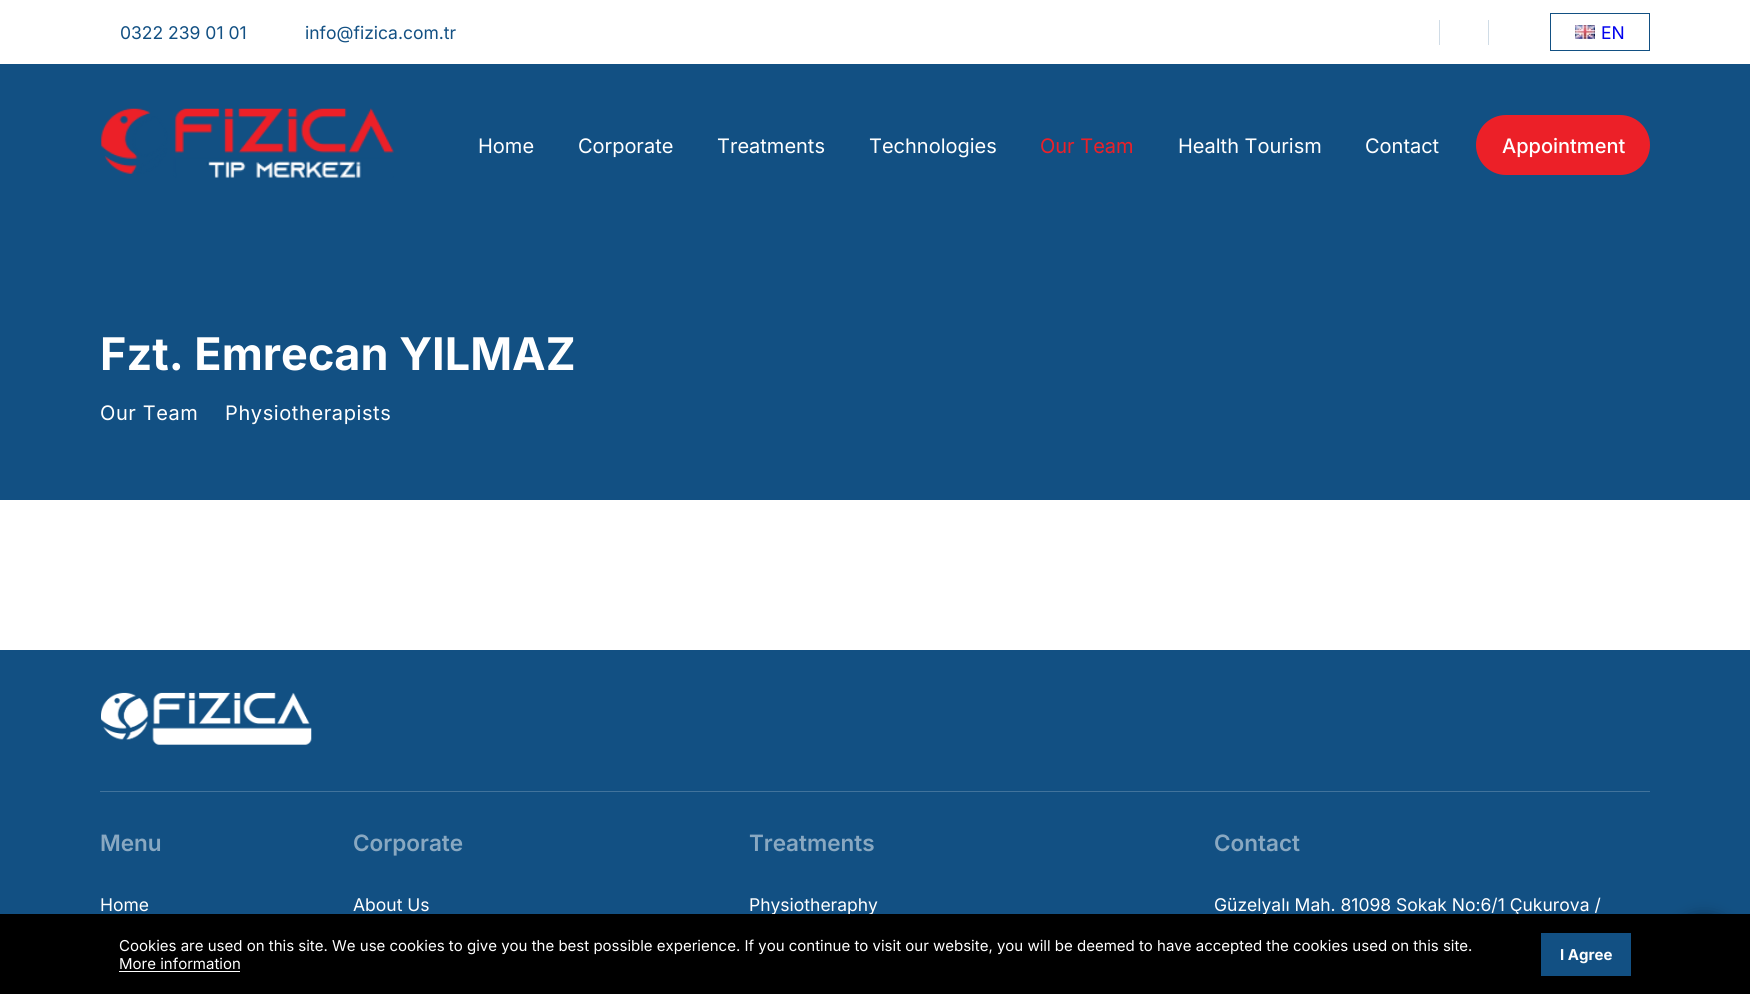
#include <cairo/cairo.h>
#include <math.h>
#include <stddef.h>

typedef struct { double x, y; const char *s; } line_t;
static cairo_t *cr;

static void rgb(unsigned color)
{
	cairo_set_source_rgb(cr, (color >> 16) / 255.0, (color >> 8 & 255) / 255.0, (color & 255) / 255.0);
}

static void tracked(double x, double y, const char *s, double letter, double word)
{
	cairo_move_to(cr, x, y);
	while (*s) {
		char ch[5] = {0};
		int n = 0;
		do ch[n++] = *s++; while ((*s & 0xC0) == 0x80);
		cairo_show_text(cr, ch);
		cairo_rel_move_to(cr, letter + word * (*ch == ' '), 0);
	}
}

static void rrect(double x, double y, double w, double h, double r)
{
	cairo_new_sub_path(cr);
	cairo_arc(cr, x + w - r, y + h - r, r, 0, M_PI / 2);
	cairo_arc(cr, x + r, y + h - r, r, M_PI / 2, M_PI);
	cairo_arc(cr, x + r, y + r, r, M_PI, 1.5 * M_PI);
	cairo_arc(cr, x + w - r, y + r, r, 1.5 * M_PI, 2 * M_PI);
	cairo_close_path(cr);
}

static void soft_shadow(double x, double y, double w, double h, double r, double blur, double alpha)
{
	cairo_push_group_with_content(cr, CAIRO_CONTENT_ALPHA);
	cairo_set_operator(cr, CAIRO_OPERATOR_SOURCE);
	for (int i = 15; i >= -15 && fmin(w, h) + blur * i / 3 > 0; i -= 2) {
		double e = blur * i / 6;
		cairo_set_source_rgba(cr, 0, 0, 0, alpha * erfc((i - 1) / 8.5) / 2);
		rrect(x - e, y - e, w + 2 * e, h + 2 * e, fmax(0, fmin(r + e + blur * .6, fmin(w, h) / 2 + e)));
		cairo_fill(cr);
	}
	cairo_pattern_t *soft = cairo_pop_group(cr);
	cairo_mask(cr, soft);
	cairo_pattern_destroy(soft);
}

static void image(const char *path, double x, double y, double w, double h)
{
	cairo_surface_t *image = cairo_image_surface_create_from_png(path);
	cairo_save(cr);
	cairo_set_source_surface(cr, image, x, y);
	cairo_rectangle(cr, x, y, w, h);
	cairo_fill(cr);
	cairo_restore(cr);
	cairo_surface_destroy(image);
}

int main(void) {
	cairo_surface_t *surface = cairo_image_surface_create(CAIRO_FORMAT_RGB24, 1750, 994);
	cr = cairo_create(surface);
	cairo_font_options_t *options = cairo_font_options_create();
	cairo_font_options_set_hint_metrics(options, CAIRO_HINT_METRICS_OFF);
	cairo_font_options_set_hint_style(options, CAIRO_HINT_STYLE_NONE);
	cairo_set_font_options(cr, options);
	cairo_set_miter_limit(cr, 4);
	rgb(0xffffff);
	cairo_paint(cr);
	rgb(0xd0dce6);
	cairo_rectangle(cr, 1439, 20, 1, 25);
	cairo_fill(cr);
	cairo_rectangle(cr, 1488, 20, 1, 25);
	cairo_fill(cr);
	cairo_rectangle(cr, 1550.5, 13.5, 99, 37);
	rgb(0x125083);
	cairo_set_line_width(cr, 1);
	cairo_stroke(cr);
	image("img/1.png", 1575, 25, 20, 14);
	cairo_rectangle(cr, 0, 64, 1750, 436);
	cairo_fill(cr);
	image("img/2.png", 101, 108, 293, 70);
	rgb(0xec2028);
	rrect(1476, 115, 174, 60, 30);
	cairo_fill(cr);
	rgb(0x125083);
	cairo_rectangle(cr, 0, 650, 1750, 264);
	cairo_fill(cr);
	rgb(0x41739c);
	cairo_rectangle(cr, 100, 791, 1550, 1);
	cairo_fill(cr);
	image("img/3.png", 101, 692, 211, 53);
	rgb(0x000000);
	soft_shadow(1674, 919, 60, 60, 30, 8, 0.6);
	cairo_select_font_face(cr, "Inter", CAIRO_FONT_SLANT_NORMAL, CAIRO_FONT_WEIGHT_NORMAL);
	cairo_set_font_size(cr, 17.5);
	rgb(0x125083);
	cairo_move_to(cr, 120, 39);
	cairo_show_text(cr, "0322 239 01 01");
	cairo_move_to(cr, 305, 39);
	cairo_show_text(cr, "info@fizica.com.tr");
	rgb(0x0000ee);
	cairo_move_to(cr, 1601, 39);
	cairo_show_text(cr, "EN");
	cairo_set_font_size(cr, 20);
	rgb(0xffffff);
	{
		static const line_t items[] = {
			{478, 153, "Home"},
			{578, 153, "Corporate"},
			{717, 153, "Treatments"},
			{869, 153, "Technologies"},
		};
		for (size_t i = 0; i < sizeof items / sizeof *items; i++) {
			cairo_move_to(cr, items[i].x, items[i].y);
			cairo_show_text(cr, items[i].s);
		}
	}
	rgb(0xec2028);
	cairo_move_to(cr, 1040, 153);
	cairo_show_text(cr, "Our Team");
	rgb(0xffffff);
	cairo_move_to(cr, 1178, 153);
	cairo_show_text(cr, "Health Tourism");
	cairo_move_to(cr, 1365, 153);
	cairo_show_text(cr, "Contact");
	cairo_select_font_face(cr, "Inter Medium", CAIRO_FONT_SLANT_NORMAL, CAIRO_FONT_WEIGHT_NORMAL);
	cairo_move_to(cr, 1502, 153);
	cairo_show_text(cr, "Appointment");
	cairo_select_font_face(cr, "Inter", CAIRO_FONT_SLANT_NORMAL, CAIRO_FONT_WEIGHT_BOLD);
	cairo_set_font_size(cr, 45);
	cairo_move_to(cr, 100, 370);
	cairo_show_text(cr, "Fzt. Emrecan YILMAZ");
	cairo_select_font_face(cr, "Inter", CAIRO_FONT_SLANT_NORMAL, CAIRO_FONT_WEIGHT_NORMAL);
	cairo_set_font_size(cr, 20);
	tracked(100, 420, "Our Team", 0.6, 0);
	tracked(225, 420, "Physiotherapists", 0.6, 0);
	cairo_select_font_face(cr, "Inter SemiBold", CAIRO_FONT_SLANT_NORMAL, CAIRO_FONT_WEIGHT_NORMAL);
	cairo_set_font_size(cr, 22.5);
	rgb(0x89a8c1);
	cairo_move_to(cr, 100, 851);
	cairo_show_text(cr, "Menu");
	cairo_select_font_face(cr, "Inter", CAIRO_FONT_SLANT_NORMAL, CAIRO_FONT_WEIGHT_NORMAL);
	cairo_set_font_size(cr, 17.5);
	rgb(0xffffff);
	cairo_move_to(cr, 100, 911);
	cairo_show_text(cr, "Home");
	cairo_select_font_face(cr, "Inter SemiBold", CAIRO_FONT_SLANT_NORMAL, CAIRO_FONT_WEIGHT_NORMAL);
	cairo_set_font_size(cr, 22.5);
	rgb(0x89a8c1);
	cairo_move_to(cr, 353, 851);
	cairo_show_text(cr, "Corporate");
	cairo_select_font_face(cr, "Inter", CAIRO_FONT_SLANT_NORMAL, CAIRO_FONT_WEIGHT_NORMAL);
	cairo_set_font_size(cr, 17.5);
	rgb(0xffffff);
	cairo_move_to(cr, 353, 911);
	cairo_show_text(cr, "About Us");
	cairo_select_font_face(cr, "Inter SemiBold", CAIRO_FONT_SLANT_NORMAL, CAIRO_FONT_WEIGHT_NORMAL);
	cairo_set_font_size(cr, 22.5);
	rgb(0x89a8c1);
	cairo_move_to(cr, 749, 851);
	cairo_show_text(cr, "Treatments");
	cairo_select_font_face(cr, "Inter", CAIRO_FONT_SLANT_NORMAL, CAIRO_FONT_WEIGHT_NORMAL);
	cairo_set_font_size(cr, 17.5);
	rgb(0xffffff);
	cairo_move_to(cr, 749, 911);
	cairo_show_text(cr, "Physiotheraphy");
	cairo_select_font_face(cr, "Inter SemiBold", CAIRO_FONT_SLANT_NORMAL, CAIRO_FONT_WEIGHT_NORMAL);
	cairo_set_font_size(cr, 22.5);
	rgb(0x89a8c1);
	cairo_move_to(cr, 1214, 851);
	cairo_show_text(cr, "Contact");
	cairo_select_font_face(cr, "Inter", CAIRO_FONT_SLANT_NORMAL, CAIRO_FONT_WEIGHT_NORMAL);
	cairo_set_font_size(cr, 17.5);
	rgb(0xffffff);
	cairo_move_to(cr, 1214, 911);
	cairo_show_text(cr, "Güzelyalı Mah. 81098 Sokak No:6/1 Çukurova /");
	rgb(0x000000);
	cairo_rectangle(cr, 0, 914, 1750, 80);
	cairo_fill(cr);
	cairo_set_font_size(cr, 15);
	rgb(0xffffff);
	cairo_move_to(cr, 119, 951);
	cairo_show_text(cr, "Cookies are used on this site. We use cookies to give you the best possible experience. If you continue to visit our website, you will be deemed to have accepted the cookies used on this site.");
	cairo_move_to(cr, 119, 969);
	cairo_show_text(cr, "More information");
	cairo_rectangle(cr, 119, 971, 121, 1);
	cairo_fill(cr);
	rgb(0x125083);
	cairo_rectangle(cr, 1541, 933, 90, 43);
	cairo_fill(cr);
	cairo_select_font_face(cr, "Inter", CAIRO_FONT_SLANT_NORMAL, CAIRO_FONT_WEIGHT_BOLD);
	rgb(0xffffff);
	cairo_move_to(cr, 1560, 960);
	cairo_show_text(cr, "I Agree");
	cairo_surface_write_to_png(surface, "page.png");
	cairo_font_options_destroy(options);
	cairo_destroy(cr);
	cairo_surface_destroy(surface);
	return 0;
}
